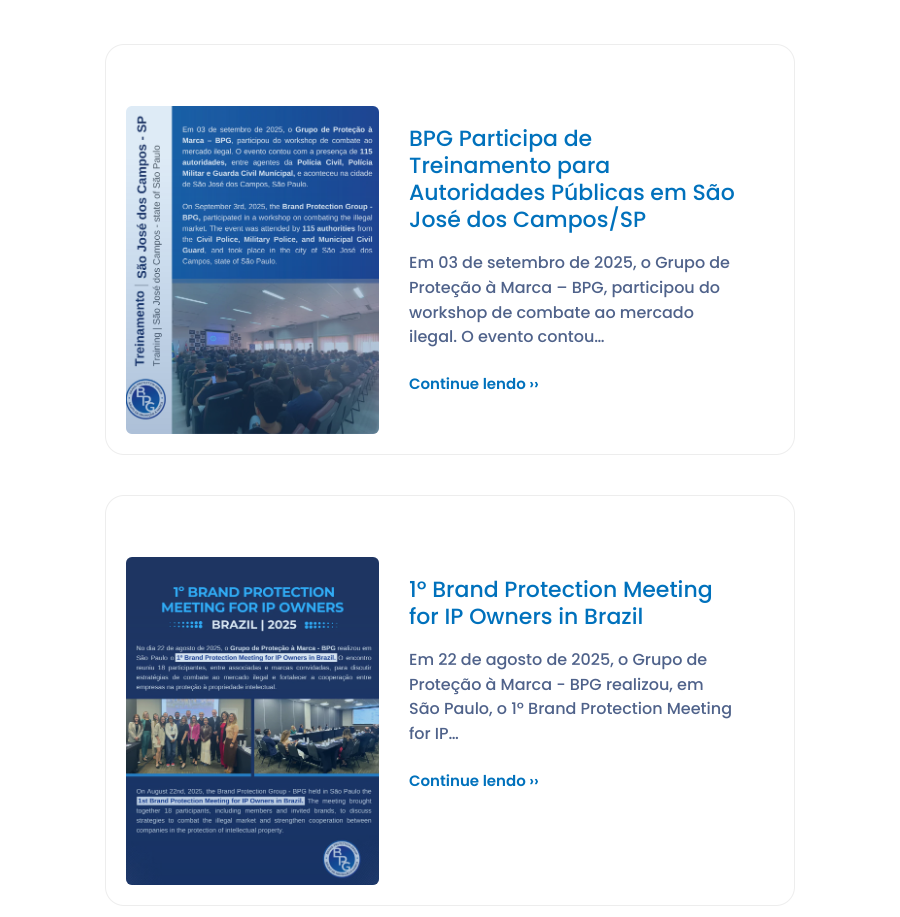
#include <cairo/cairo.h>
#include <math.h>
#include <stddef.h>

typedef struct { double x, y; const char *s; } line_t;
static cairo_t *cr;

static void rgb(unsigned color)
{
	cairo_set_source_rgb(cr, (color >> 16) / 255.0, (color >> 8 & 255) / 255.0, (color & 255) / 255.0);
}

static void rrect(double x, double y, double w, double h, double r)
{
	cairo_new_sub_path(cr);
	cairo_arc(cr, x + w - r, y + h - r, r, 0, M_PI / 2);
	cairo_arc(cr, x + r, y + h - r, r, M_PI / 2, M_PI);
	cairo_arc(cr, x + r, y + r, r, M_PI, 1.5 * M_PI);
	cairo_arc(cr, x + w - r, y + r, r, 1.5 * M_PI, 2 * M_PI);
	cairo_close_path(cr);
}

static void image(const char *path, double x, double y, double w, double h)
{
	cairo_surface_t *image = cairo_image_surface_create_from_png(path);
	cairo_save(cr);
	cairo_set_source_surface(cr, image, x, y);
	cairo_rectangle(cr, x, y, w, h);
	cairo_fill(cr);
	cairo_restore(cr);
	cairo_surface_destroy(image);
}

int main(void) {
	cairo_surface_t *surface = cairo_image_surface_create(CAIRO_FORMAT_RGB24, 900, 917);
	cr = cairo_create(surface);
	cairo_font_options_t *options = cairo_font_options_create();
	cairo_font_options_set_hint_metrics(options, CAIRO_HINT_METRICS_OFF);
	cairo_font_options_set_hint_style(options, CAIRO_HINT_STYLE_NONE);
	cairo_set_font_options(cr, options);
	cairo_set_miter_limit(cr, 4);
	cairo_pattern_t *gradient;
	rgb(0xffffff);
	cairo_paint(cr);
	rrect(105.5, 44.5, 689, 410, 18.5);
	rgb(0xededed);
	cairo_set_line_width(cr, 1);
	cairo_stroke(cr);
	image("img/1.png", 126, 106, 253, 328);
	gradient = cairo_pattern_create_linear(252, 106, 253, 616);
	cairo_pattern_add_color_stop_rgba(gradient, 0.1, 0, 0.384, 0.737, 0.13);
	cairo_pattern_add_color_stop_rgba(gradient, 1, 0, 0.122, 0.376, 0.45);
	cairo_set_source(cr, gradient);
	cairo_pattern_destroy(gradient);
	rrect(126, 106, 253, 328, 6);
	cairo_fill(cr);
	rrect(105.5, 495.5, 689, 410, 18.5);
	rgb(0xededed);
	cairo_stroke(cr);
	image("img/2.png", 126, 557, 253, 328);
	gradient = cairo_pattern_create_linear(252, 557, 253, 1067);
	cairo_pattern_add_color_stop_rgba(gradient, 0.1, 0, 0.384, 0.737, 0.13);
	cairo_pattern_add_color_stop_rgba(gradient, 1, 0, 0.122, 0.376, 0.45);
	cairo_set_source(cr, gradient);
	cairo_pattern_destroy(gradient);
	rrect(126, 557, 253, 328, 6);
	cairo_fill(cr);
	cairo_select_font_face(cr, "Poppins Medium", CAIRO_FONT_SLANT_NORMAL, CAIRO_FONT_WEIGHT_NORMAL);
	cairo_set_font_size(cr, 22);
	rgb(0x0071bc);
	{
		static const line_t items[] = {
			{409, 146, "BPG Participa de"},
			{409, 173, "Treinamento para"},
			{409, 200, "Autoridades Públicas em São"},
			{409, 227, "José dos Campos/SP"},
		};
		for (size_t i = 0; i < sizeof items / sizeof *items; i++) {
			cairo_move_to(cr, items[i].x, items[i].y);
			cairo_show_text(cr, items[i].s);
		}
	}
	cairo_set_font_size(cr, 16);
	rgb(0x4f628a);
	{
		static const line_t items[] = {
			{409, 268, "Em 03 de setembro de 2025, o Grupo de"},
			{409, 293, "Proteção à Marca – BPG, participou do"},
			{409, 318, "workshop de combate ao mercado"},
			{409, 342, "ilegal. O evento contou…"},
		};
		for (size_t i = 0; i < sizeof items / sizeof *items; i++) {
			cairo_move_to(cr, items[i].x, items[i].y);
			cairo_show_text(cr, items[i].s);
		}
	}
	cairo_select_font_face(cr, "Poppins SemiBold", CAIRO_FONT_SLANT_NORMAL, CAIRO_FONT_WEIGHT_NORMAL);
	cairo_set_font_size(cr, 15);
	rgb(0x0071bc);
	cairo_move_to(cr, 409, 389);
	cairo_show_text(cr, "Continue lendo ››");
	cairo_select_font_face(cr, "Poppins Medium", CAIRO_FONT_SLANT_NORMAL, CAIRO_FONT_WEIGHT_NORMAL);
	cairo_set_font_size(cr, 22);
	cairo_move_to(cr, 409, 597);
	cairo_show_text(cr, "1º Brand Protection Meeting");
	cairo_move_to(cr, 409, 624);
	cairo_show_text(cr, "for IP Owners in Brazil");
	cairo_set_font_size(cr, 16);
	rgb(0x4f628a);
	{
		static const line_t items[] = {
			{409, 665, "Em 22 de agosto de 2025, o Grupo de"},
			{409, 690, "Proteção à Marca - BPG realizou, em"},
			{409, 714, "São Paulo, o 1º Brand Protection Meeting"},
			{409, 739, "for IP…"},
		};
		for (size_t i = 0; i < sizeof items / sizeof *items; i++) {
			cairo_move_to(cr, items[i].x, items[i].y);
			cairo_show_text(cr, items[i].s);
		}
	}
	cairo_select_font_face(cr, "Poppins SemiBold", CAIRO_FONT_SLANT_NORMAL, CAIRO_FONT_WEIGHT_NORMAL);
	cairo_set_font_size(cr, 15);
	rgb(0x0071bc);
	cairo_move_to(cr, 409, 786);
	cairo_show_text(cr, "Continue lendo ››");
	cairo_surface_write_to_png(surface, "page.png");
	cairo_font_options_destroy(options);
	cairo_destroy(cr);
	cairo_surface_destroy(surface);
	return 0;
}
